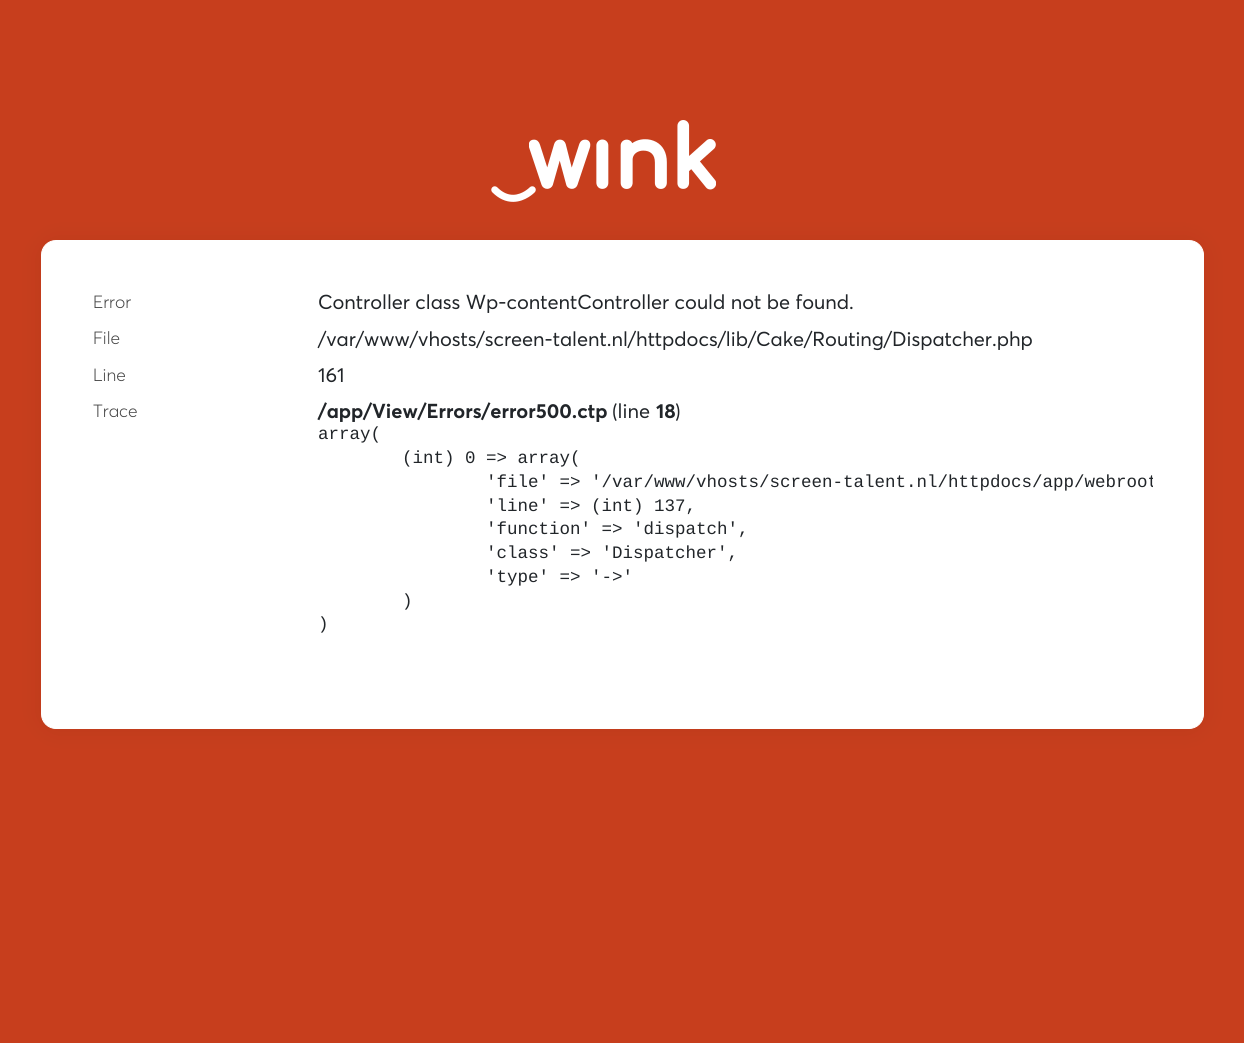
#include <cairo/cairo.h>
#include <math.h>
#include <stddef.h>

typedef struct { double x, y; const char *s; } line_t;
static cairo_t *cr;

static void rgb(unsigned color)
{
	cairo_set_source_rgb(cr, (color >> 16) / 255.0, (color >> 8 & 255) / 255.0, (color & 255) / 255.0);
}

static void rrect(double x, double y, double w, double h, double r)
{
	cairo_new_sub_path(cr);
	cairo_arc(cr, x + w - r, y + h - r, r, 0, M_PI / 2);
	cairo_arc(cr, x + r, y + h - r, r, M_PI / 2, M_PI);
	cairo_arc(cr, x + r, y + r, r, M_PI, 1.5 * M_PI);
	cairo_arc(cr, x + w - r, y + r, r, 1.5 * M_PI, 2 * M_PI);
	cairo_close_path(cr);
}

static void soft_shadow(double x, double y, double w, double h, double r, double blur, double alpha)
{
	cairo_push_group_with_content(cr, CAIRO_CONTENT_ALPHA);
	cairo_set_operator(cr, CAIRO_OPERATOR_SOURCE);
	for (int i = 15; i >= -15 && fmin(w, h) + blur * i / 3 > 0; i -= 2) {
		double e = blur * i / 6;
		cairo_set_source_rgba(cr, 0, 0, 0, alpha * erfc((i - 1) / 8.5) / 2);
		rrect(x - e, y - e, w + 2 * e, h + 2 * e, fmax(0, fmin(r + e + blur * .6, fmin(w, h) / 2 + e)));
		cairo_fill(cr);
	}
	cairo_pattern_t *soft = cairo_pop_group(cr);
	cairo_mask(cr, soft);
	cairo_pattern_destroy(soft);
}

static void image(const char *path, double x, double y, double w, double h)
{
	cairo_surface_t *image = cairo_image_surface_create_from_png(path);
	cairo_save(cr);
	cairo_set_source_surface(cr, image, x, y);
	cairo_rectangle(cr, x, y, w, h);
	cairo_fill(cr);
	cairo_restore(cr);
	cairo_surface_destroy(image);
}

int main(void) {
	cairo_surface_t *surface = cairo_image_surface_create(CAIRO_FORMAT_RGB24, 1244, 1043);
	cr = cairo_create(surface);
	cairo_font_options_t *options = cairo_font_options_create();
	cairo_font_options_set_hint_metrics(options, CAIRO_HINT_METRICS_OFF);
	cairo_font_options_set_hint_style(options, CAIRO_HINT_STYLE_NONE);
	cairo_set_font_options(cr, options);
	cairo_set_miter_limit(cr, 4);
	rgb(0xc73e1d);
	cairo_paint(cr);
	image("img/1.png", 529, 120, 187, 70);
	image("img/2.png", 491, 186, 45, 16);
	rgb(0x000000);
	soft_shadow(41, 241, 1163, 489, 15, 12.5, 0.06);
	rgb(0xffffff);
	rrect(41.5, 240.5, 1162, 488, 14.5);
	cairo_fill_preserve(cr);
	cairo_set_line_width(cr, 1);
	cairo_stroke(cr);
	cairo_select_font_face(cr, "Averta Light", CAIRO_FONT_SLANT_NORMAL, CAIRO_FONT_WEIGHT_NORMAL);
	cairo_set_font_size(cr, 17.5);
	rgb(0x444444);
	cairo_move_to(cr, 93, 308);
	cairo_show_text(cr, "Error");
	cairo_select_font_face(cr, "Averta", CAIRO_FONT_SLANT_NORMAL, CAIRO_FONT_WEIGHT_NORMAL);
	cairo_set_font_size(cr, 20);
	rgb(0x212529);
	cairo_move_to(cr, 318, 309);
	cairo_show_text(cr, "Controller class Wp-contentController could not be found.");
	cairo_select_font_face(cr, "Averta Light", CAIRO_FONT_SLANT_NORMAL, CAIRO_FONT_WEIGHT_NORMAL);
	cairo_set_font_size(cr, 17.5);
	rgb(0x444444);
	cairo_move_to(cr, 93, 344);
	cairo_show_text(cr, "File");
	cairo_select_font_face(cr, "Averta", CAIRO_FONT_SLANT_NORMAL, CAIRO_FONT_WEIGHT_NORMAL);
	cairo_set_font_size(cr, 20);
	rgb(0x212529);
	cairo_move_to(cr, 318, 346);
	cairo_show_text(cr, "/var/www/vhosts/screen-talent.nl/httpdocs/lib/Cake/Routing/Dispatcher.php");
	cairo_select_font_face(cr, "Averta Light", CAIRO_FONT_SLANT_NORMAL, CAIRO_FONT_WEIGHT_NORMAL);
	cairo_set_font_size(cr, 17.5);
	rgb(0x444444);
	cairo_move_to(cr, 93, 381);
	cairo_show_text(cr, "Line");
	cairo_select_font_face(cr, "Averta", CAIRO_FONT_SLANT_NORMAL, CAIRO_FONT_WEIGHT_NORMAL);
	cairo_set_font_size(cr, 20);
	rgb(0x212529);
	cairo_move_to(cr, 318, 382);
	cairo_show_text(cr, "161");
	cairo_select_font_face(cr, "Averta Light", CAIRO_FONT_SLANT_NORMAL, CAIRO_FONT_WEIGHT_NORMAL);
	cairo_set_font_size(cr, 17.5);
	rgb(0x444444);
	cairo_move_to(cr, 93, 417);
	cairo_show_text(cr, "Trace");
	cairo_select_font_face(cr, "Averta", CAIRO_FONT_SLANT_NORMAL, CAIRO_FONT_WEIGHT_BOLD);
	cairo_set_font_size(cr, 20);
	rgb(0x212529);
	cairo_move_to(cr, 318, 418);
	cairo_show_text(cr, "/app/View/Errors/error500.ctp");
	cairo_select_font_face(cr, "Averta", CAIRO_FONT_SLANT_NORMAL, CAIRO_FONT_WEIGHT_NORMAL);
	cairo_move_to(cr, 612, 418);
	cairo_show_text(cr, "(line");
	cairo_select_font_face(cr, "Averta", CAIRO_FONT_SLANT_NORMAL, CAIRO_FONT_WEIGHT_BOLD);
	cairo_move_to(cr, 656, 418);
	cairo_show_text(cr, "18");
	cairo_select_font_face(cr, "Averta", CAIRO_FONT_SLANT_NORMAL, CAIRO_FONT_WEIGHT_NORMAL);
	cairo_move_to(cr, 675, 418);
	cairo_show_text(cr, ")");
	cairo_select_font_face(cr, "Liberation Mono", CAIRO_FONT_SLANT_NORMAL, CAIRO_FONT_WEIGHT_NORMAL);
	cairo_set_font_size(cr, 17.5);
	cairo_move_to(cr, 318, 439);
	cairo_show_text(cr, "array(");
	cairo_move_to(cr, 402, 463);
	cairo_show_text(cr, "(int) 0 => array(");
	cairo_save(cr);
	cairo_rectangle(cr, 318, 424, 835, 214);
	cairo_clip(cr);
	cairo_move_to(cr, 486, 487);
	cairo_show_text(cr, "'file' => '/var/www/vhosts/screen-talent.nl/httpdocs/app/webroot");
	cairo_restore(cr);
	{
		static const line_t items[] = {
			{486, 511, "'line' => (int) 137,"},
			{486, 534, "'function' => 'dispatch',"},
			{486, 558, "'class' => 'Dispatcher',"},
			{486, 582, "'type' => '->'"},
			{402, 606, ")"},
			{318, 629, ")"},
		};
		for (size_t i = 0; i < sizeof items / sizeof *items; i++) {
			cairo_move_to(cr, items[i].x, items[i].y);
			cairo_show_text(cr, items[i].s);
		}
	}
	cairo_surface_write_to_png(surface, "page.png");
	cairo_font_options_destroy(options);
	cairo_destroy(cr);
	cairo_surface_destroy(surface);
	return 0;
}
